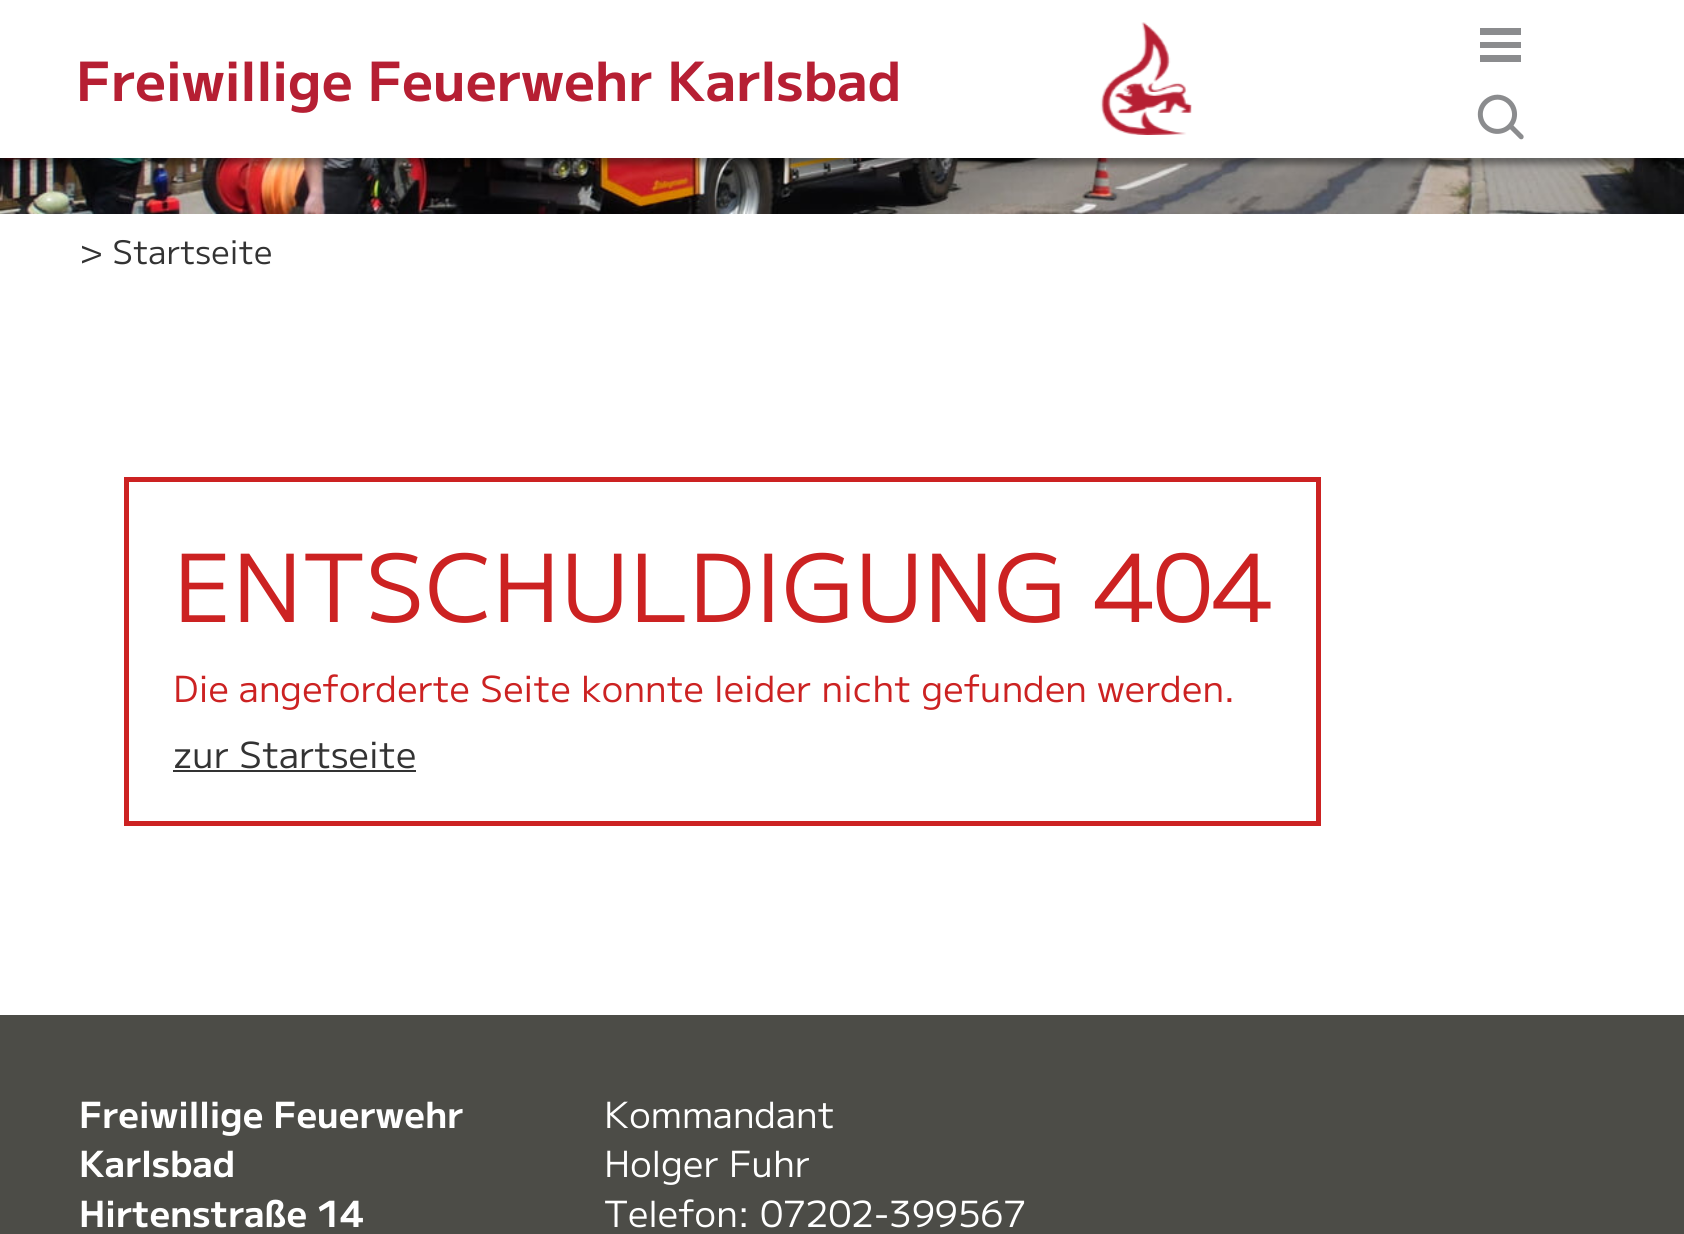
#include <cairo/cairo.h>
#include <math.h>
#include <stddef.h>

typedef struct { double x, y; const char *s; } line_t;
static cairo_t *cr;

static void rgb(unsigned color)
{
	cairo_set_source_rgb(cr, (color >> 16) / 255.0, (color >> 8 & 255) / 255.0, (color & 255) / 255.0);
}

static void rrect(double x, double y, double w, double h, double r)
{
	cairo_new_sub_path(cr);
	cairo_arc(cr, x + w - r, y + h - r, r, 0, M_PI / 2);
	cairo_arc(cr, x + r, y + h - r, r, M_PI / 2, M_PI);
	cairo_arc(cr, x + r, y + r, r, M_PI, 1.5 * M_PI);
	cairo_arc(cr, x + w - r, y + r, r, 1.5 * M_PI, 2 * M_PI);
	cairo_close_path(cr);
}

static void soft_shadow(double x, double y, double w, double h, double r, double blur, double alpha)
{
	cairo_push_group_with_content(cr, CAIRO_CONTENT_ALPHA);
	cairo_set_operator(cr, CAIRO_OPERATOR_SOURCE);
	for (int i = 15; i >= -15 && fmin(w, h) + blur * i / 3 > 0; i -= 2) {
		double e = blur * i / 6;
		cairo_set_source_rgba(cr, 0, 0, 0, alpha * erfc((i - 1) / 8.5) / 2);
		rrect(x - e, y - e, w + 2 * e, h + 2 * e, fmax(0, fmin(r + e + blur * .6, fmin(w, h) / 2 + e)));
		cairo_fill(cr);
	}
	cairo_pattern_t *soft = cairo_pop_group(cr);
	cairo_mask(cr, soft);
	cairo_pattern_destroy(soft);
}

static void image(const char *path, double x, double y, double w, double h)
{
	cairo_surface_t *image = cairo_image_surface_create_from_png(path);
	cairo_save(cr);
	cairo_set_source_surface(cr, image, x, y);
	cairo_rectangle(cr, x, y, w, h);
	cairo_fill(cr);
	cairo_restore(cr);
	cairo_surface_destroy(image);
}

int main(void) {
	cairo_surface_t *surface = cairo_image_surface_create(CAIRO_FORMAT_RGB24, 1684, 1234);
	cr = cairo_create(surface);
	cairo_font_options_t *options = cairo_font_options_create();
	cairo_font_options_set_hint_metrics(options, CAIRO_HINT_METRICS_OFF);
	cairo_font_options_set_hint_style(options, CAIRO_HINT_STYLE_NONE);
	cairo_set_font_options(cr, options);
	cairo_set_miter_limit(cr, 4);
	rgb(0x4c4c47);
	cairo_paint(cr);
	image("img/3.png", 0, 158, 1684, 56);
	rgb(0x000000);
	soft_shadow(-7, -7, 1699, 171, 0, 3.5, 0.4);
	rgb(0xffffff);
	cairo_rectangle(cr, 0, 0, 1684, 158);
	cairo_fill(cr);
	image("img/1.png", 1100, 22, 92, 113);
	rgb(0x8b8c8e);
	cairo_new_path(cr);
	cairo_move_to(cr, 1480, 28);
	cairo_line_to(cr, 1521, 28);
	cairo_line_to(cr, 1521, 35);
	cairo_line_to(cr, 1480, 35);
	cairo_close_path(cr);
	cairo_move_to(cr, 1480, 42);
	cairo_line_to(cr, 1521, 42);
	cairo_line_to(cr, 1521, 48);
	cairo_line_to(cr, 1480, 48);
	cairo_close_path(cr);
	cairo_move_to(cr, 1480, 55);
	cairo_line_to(cr, 1521, 55);
	cairo_line_to(cr, 1521, 62);
	cairo_line_to(cr, 1480, 62);
	cairo_close_path(cr);
	cairo_fill(cr);
	image("img/2.png", 1477, 94, 47, 46);
	rgb(0xffffff);
	cairo_rectangle(cr, 0, 214, 1684, 801);
	cairo_fill(cr);
	cairo_rectangle(cr, 126.5, 479.5, 1192, 344);
	rgb(0xcc2222);
	cairo_set_line_width(cr, 5);
	cairo_stroke(cr);
	rgb(0x333333);
	cairo_rectangle(cr, 173, 770, 243, 2);
	cairo_fill(cr);
	cairo_select_font_face(cr, "M PLUS 1 Thin", CAIRO_FONT_SLANT_NORMAL, CAIRO_FONT_WEIGHT_NORMAL);
	cairo_set_font_size(cr, 54);
	rgb(0xb61f33);
	cairo_move_to(cr, 76, 101);
	cairo_show_text(cr, "Freiwillige Feuerwehr Karlsbad");
	cairo_select_font_face(cr, "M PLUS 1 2 Thin", CAIRO_FONT_SLANT_NORMAL, CAIRO_FONT_WEIGHT_NORMAL);
	cairo_set_font_size(cr, 32.5);
	rgb(0x333333);
	cairo_move_to(cr, 79, 264);
	cairo_show_text(cr, "> Startseite");
	cairo_set_font_size(cr, 93.6);
	rgb(0xcc2222);
	cairo_move_to(cr, 173, 622);
	cairo_show_text(cr, "ENTSCHULDIGUNG 404");
	cairo_set_font_size(cr, 36);
	cairo_move_to(cr, 173, 702);
	cairo_show_text(cr, "Die angeforderte Seite konnte leider nicht gefunden werden.");
	rgb(0x333333);
	cairo_move_to(cr, 173, 768);
	cairo_show_text(cr, "zur Startseite");
	cairo_select_font_face(cr, "M PLUS 1 Thin", CAIRO_FONT_SLANT_NORMAL, CAIRO_FONT_WEIGHT_NORMAL);
	rgb(0xffffff);
	{
		static const line_t items[] = {
			{79, 1128, "Freiwillige Feuerwehr"},
			{79, 1177, "Karlsbad"},
			{79, 1227, "Hirtenstraße 14"},
		};
		for (size_t i = 0; i < sizeof items / sizeof *items; i++) {
			cairo_move_to(cr, items[i].x, items[i].y);
			cairo_show_text(cr, items[i].s);
		}
	}
	cairo_select_font_face(cr, "M PLUS 1 2 Thin", CAIRO_FONT_SLANT_NORMAL, CAIRO_FONT_WEIGHT_NORMAL);
	{
		static const line_t items[] = {
			{604, 1128, "Kommandant"},
			{604, 1177, "Holger Fuhr"},
			{604, 1227, "Telefon: 07202-399567"},
		};
		for (size_t i = 0; i < sizeof items / sizeof *items; i++) {
			cairo_move_to(cr, items[i].x, items[i].y);
			cairo_show_text(cr, items[i].s);
		}
	}
	cairo_surface_write_to_png(surface, "page.png");
	cairo_font_options_destroy(options);
	cairo_destroy(cr);
	cairo_surface_destroy(surface);
	return 0;
}
